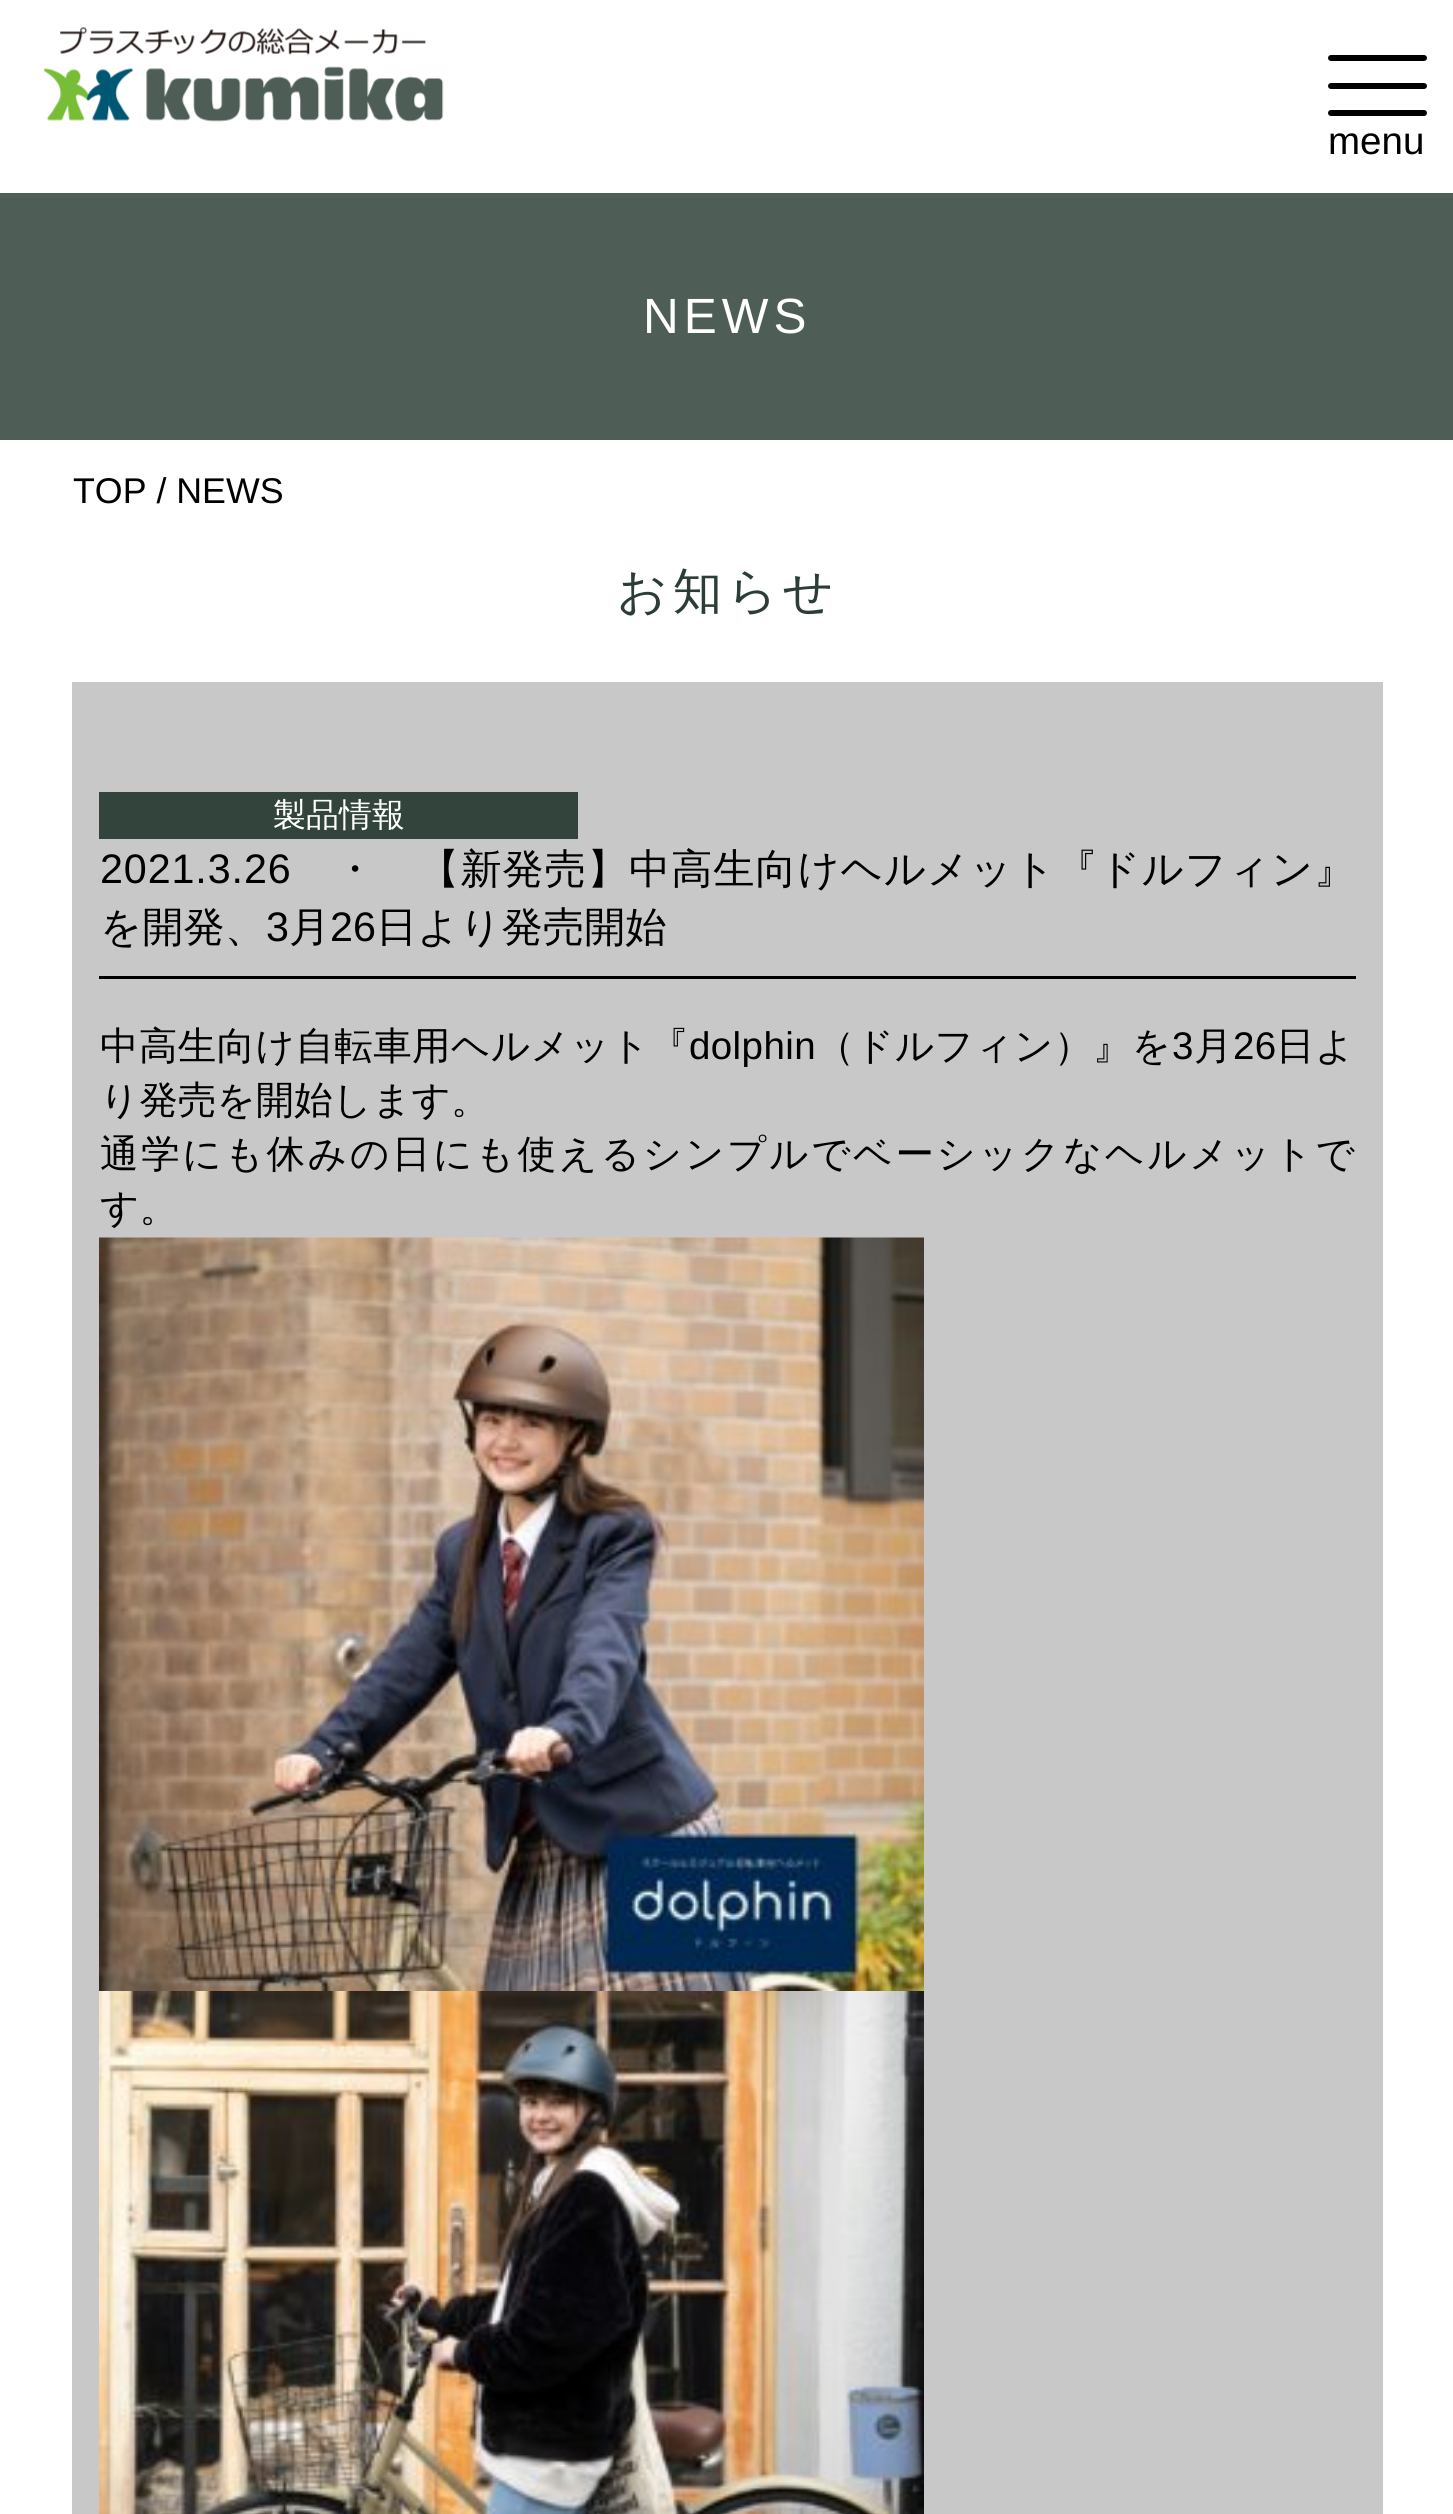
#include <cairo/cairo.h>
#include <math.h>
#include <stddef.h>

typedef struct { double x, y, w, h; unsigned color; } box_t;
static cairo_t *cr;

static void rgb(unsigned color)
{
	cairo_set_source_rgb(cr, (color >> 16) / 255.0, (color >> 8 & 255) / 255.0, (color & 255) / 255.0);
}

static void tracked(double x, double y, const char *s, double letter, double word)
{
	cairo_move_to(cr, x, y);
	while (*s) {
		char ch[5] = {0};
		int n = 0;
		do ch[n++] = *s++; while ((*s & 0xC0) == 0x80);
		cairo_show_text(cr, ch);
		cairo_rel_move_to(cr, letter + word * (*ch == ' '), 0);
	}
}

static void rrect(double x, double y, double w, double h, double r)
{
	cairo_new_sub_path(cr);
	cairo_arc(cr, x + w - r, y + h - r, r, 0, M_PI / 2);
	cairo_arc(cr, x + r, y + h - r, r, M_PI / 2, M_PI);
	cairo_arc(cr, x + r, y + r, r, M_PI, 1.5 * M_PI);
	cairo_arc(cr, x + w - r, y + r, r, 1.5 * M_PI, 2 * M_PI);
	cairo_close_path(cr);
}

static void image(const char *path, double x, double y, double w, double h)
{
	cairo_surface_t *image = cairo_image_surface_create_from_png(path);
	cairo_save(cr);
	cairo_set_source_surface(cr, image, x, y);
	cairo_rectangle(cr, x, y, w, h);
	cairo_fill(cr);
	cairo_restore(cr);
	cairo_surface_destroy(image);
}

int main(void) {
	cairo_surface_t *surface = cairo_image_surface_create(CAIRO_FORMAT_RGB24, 1453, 2514);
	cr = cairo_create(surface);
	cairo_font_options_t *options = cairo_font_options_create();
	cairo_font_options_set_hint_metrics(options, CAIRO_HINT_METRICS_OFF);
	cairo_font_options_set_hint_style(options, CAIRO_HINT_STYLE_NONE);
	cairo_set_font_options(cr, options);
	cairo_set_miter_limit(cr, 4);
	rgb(0xffffff);
	cairo_paint(cr);
	image("img/1.png", 44, 27, 400, 95);
	rgb(0x000000);
	rrect(1328, 55, 99, 6, 3);
	cairo_fill(cr);
	rrect(1328, 83, 99, 6, 3);
	cairo_fill(cr);
	rrect(1328, 110, 99, 6, 3);
	cairo_fill(cr);
	{
		static const box_t items[] = {
			{0, 193, 1453, 247, 0x4e5e56},
			{72, 682, 1311, 1832, 0xc8c8c8},
			{99, 792, 479, 47, 0x32443b},
			{99, 976, 1257, 3, 0x000000},
		};
		for (size_t i = 0; i < sizeof items / sizeof *items; i++) {
			rgb(items[i].color);
			cairo_rectangle(cr, items[i].x, items[i].y, items[i].w, items[i].h);
			cairo_fill(cr);
		}
	}
	image("img/2.png", 99, 1237, 825, 754);
	image("img/3.png", 99, 1991, 825, 523);
	cairo_select_font_face(cr, "Liberation Sans", CAIRO_FONT_SLANT_NORMAL, CAIRO_FONT_WEIGHT_NORMAL);
	cairo_set_font_size(cr, 38.5);
	cairo_move_to(cr, 1328, 154);
	cairo_show_text(cr, "menu");
	cairo_set_font_size(cr, 49.5);
	rgb(0xffffff);
	tracked(643, 333, "NEWS", 5, 0);
	cairo_set_font_size(cr, 35.75);
	rgb(0x000000);
	cairo_move_to(cr, 73, 503);
	cairo_show_text(cr, "TOP / NEWS");
	cairo_select_font_face(cr, "WenQuanYi Zen Hei Medium", CAIRO_FONT_SLANT_NORMAL, CAIRO_FONT_WEIGHT_NORMAL);
	cairo_set_font_size(cr, 49.5);
	rgb(0x2b3d34);
	tracked(617, 608, "お知らせ", 5, 0);
	cairo_set_font_size(cr, 33);
	rgb(0xffffff);
	cairo_move_to(cr, 273, 826);
	cairo_show_text(cr, "製品情報");
	cairo_select_font_face(cr, "Liberation Sans", CAIRO_FONT_SLANT_NORMAL, CAIRO_FONT_WEIGHT_NORMAL);
	cairo_set_font_size(cr, 41.25);
	rgb(0x000000);
	tracked(100, 883, "2021.3.26", 0.9, 0);
	cairo_select_font_face(cr, "WenQuanYi Zen Hei Medium", CAIRO_FONT_SLANT_NORMAL, CAIRO_FONT_WEIGHT_NORMAL);
	tracked(334, 883, "・　【新発売】中高生向けヘルメット『ドルフィン』", 0.9, 0);
	cairo_move_to(cr, 100, 941);
	cairo_show_text(cr, "を開発、");
	cairo_select_font_face(cr, "Liberation Sans", CAIRO_FONT_SLANT_NORMAL, CAIRO_FONT_WEIGHT_NORMAL);
	cairo_move_to(cr, 266, 941);
	cairo_show_text(cr, "3");
	cairo_select_font_face(cr, "WenQuanYi Zen Hei Medium", CAIRO_FONT_SLANT_NORMAL, CAIRO_FONT_WEIGHT_NORMAL);
	cairo_move_to(cr, 289, 941);
	cairo_show_text(cr, "月");
	cairo_select_font_face(cr, "Liberation Sans", CAIRO_FONT_SLANT_NORMAL, CAIRO_FONT_WEIGHT_NORMAL);
	cairo_move_to(cr, 330, 941);
	cairo_show_text(cr, "26");
	cairo_select_font_face(cr, "WenQuanYi Zen Hei Medium", CAIRO_FONT_SLANT_NORMAL, CAIRO_FONT_WEIGHT_NORMAL);
	cairo_move_to(cr, 376, 941);
	cairo_show_text(cr, "日より発売開始");
	cairo_set_font_size(cr, 38.5);
	tracked(100, 1059, "中高生向け自転車用ヘルメット『", 0.4, 0);
	cairo_select_font_face(cr, "Liberation Sans", CAIRO_FONT_SLANT_NORMAL, CAIRO_FONT_WEIGHT_NORMAL);
	tracked(689, 1059, "dolphin", 0.4, 0);
	cairo_select_font_face(cr, "WenQuanYi Zen Hei Medium", CAIRO_FONT_SLANT_NORMAL, CAIRO_FONT_WEIGHT_NORMAL);
	tracked(816, 1059, "（ドルフィン）』を", 0.4, 0);
	cairo_select_font_face(cr, "Liberation Sans", CAIRO_FONT_SLANT_NORMAL, CAIRO_FONT_WEIGHT_NORMAL);
	tracked(1172, 1059, "3", 0.4, 0);
	cairo_select_font_face(cr, "WenQuanYi Zen Hei Medium", CAIRO_FONT_SLANT_NORMAL, CAIRO_FONT_WEIGHT_NORMAL);
	tracked(1194, 1059, "月", 0.4, 0);
	cairo_select_font_face(cr, "Liberation Sans", CAIRO_FONT_SLANT_NORMAL, CAIRO_FONT_WEIGHT_NORMAL);
	tracked(1233, 1059, "26", 0.4, 0);
	cairo_select_font_face(cr, "WenQuanYi Zen Hei Medium", CAIRO_FONT_SLANT_NORMAL, CAIRO_FONT_WEIGHT_NORMAL);
	tracked(1276, 1059, "日よ", 0.4, 0);
	cairo_move_to(cr, 100, 1113);
	cairo_show_text(cr, "り発売を開始します。");
	tracked(100, 1167, "通学にも休みの日にも使えるシンプルでベーシックなヘルメットで", 2.7, 0);
	cairo_move_to(cr, 100, 1221);
	cairo_show_text(cr, "す。");
	cairo_surface_write_to_png(surface, "page.png");
	cairo_font_options_destroy(options);
	cairo_destroy(cr);
	cairo_surface_destroy(surface);
	return 0;
}
